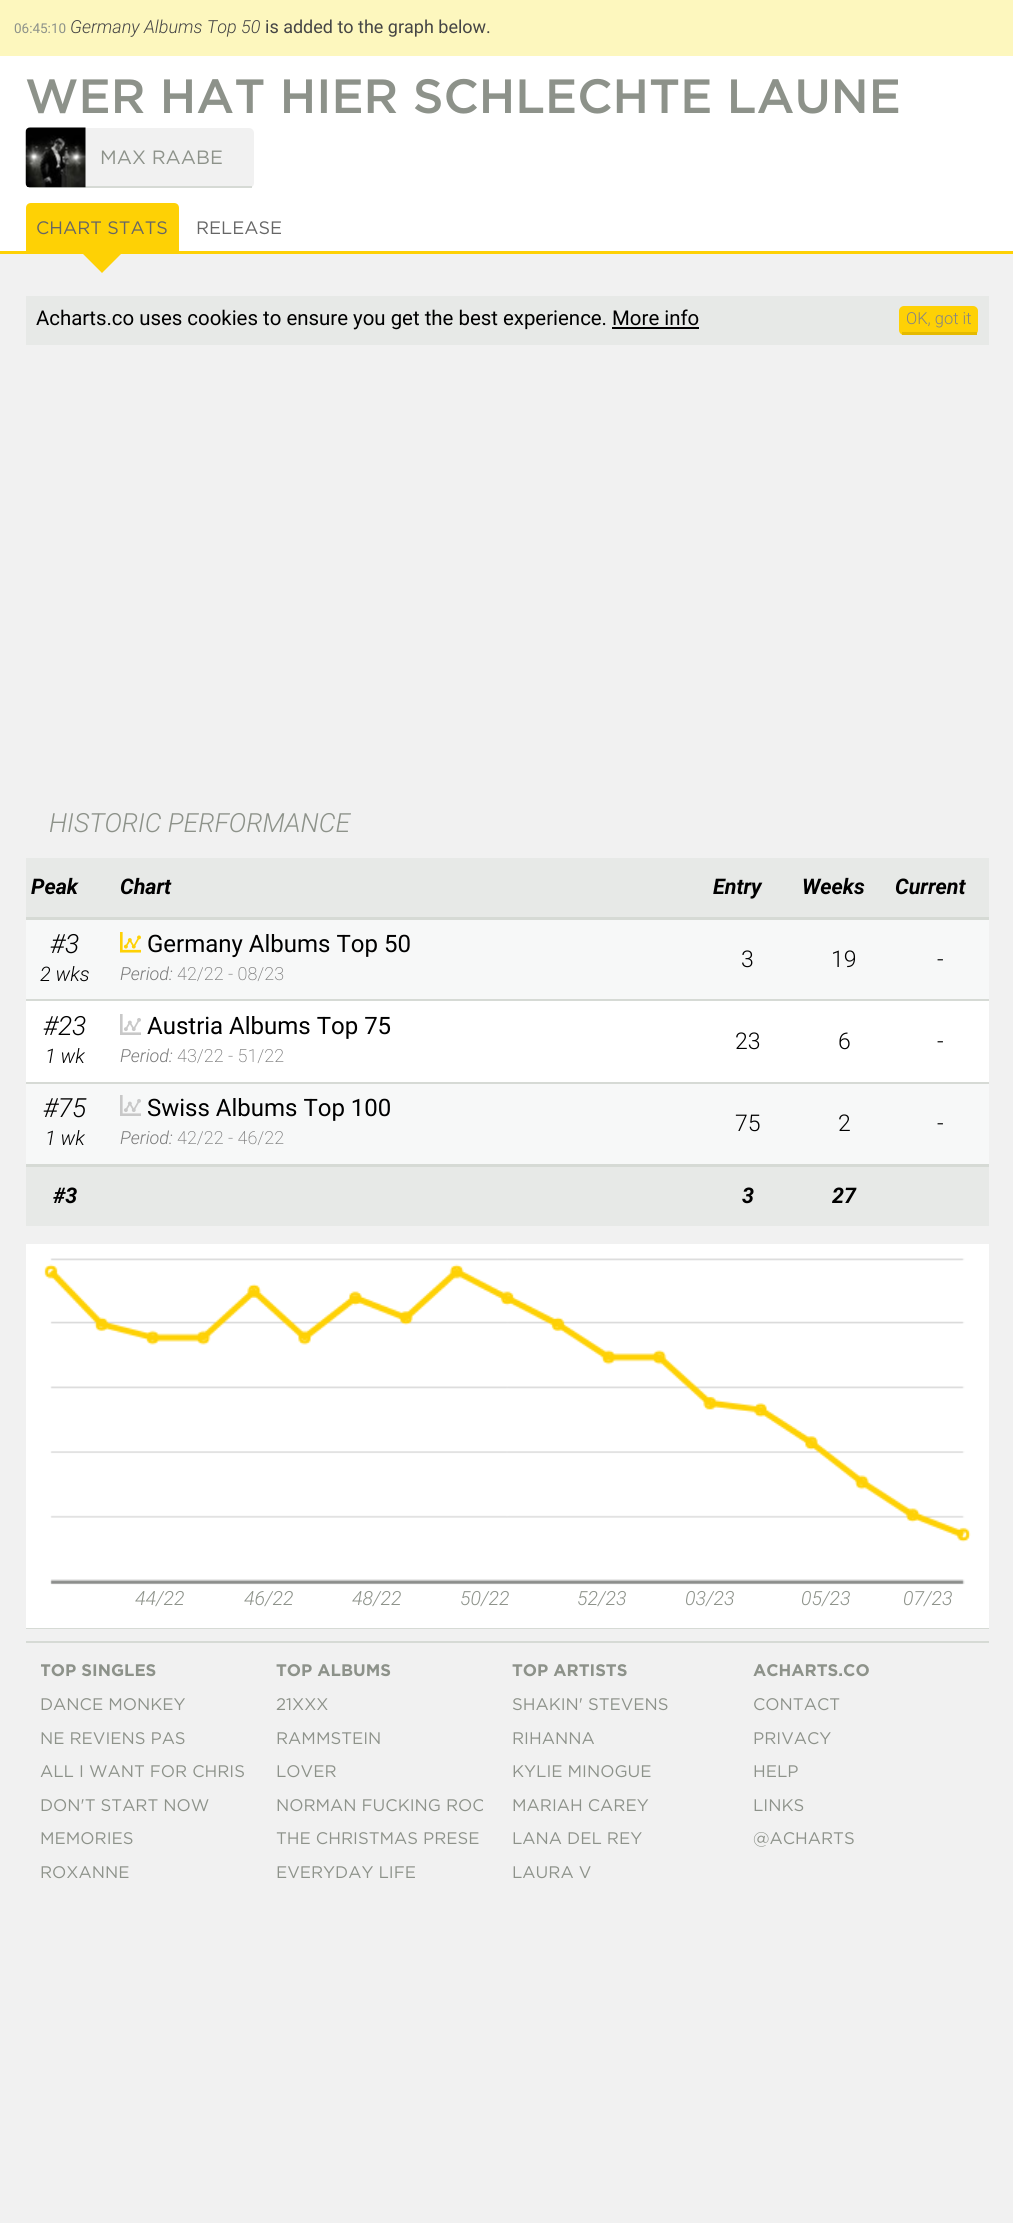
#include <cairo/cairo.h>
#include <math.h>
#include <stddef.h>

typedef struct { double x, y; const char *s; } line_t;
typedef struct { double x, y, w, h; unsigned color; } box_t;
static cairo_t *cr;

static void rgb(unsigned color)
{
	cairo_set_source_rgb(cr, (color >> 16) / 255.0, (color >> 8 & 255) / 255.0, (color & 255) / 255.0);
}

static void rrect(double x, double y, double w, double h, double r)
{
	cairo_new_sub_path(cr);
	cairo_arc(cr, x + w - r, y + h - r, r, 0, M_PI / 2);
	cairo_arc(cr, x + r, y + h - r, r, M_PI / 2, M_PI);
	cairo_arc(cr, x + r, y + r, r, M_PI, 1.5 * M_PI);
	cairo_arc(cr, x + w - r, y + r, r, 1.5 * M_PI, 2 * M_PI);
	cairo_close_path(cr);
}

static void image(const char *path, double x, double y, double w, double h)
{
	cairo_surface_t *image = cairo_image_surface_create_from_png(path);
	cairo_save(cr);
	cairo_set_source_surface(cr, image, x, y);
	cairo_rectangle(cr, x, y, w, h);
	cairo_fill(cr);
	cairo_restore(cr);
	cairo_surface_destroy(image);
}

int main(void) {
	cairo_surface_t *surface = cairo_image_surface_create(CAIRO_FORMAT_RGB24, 1013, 2223);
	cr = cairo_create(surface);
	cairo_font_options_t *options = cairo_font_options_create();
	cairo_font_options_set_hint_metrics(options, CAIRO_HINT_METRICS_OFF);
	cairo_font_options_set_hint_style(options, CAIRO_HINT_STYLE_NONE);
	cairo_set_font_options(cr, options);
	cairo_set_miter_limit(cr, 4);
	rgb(0xf1f1f1);
	cairo_paint(cr);
	rgb(0xffffff);
	cairo_rectangle(cr, 0, 56, 1013, 195);
	cairo_fill(cr);
	rgb(0xfdf7be);
	cairo_rectangle(cr, 0, 0, 1013, 56);
	cairo_fill(cr);
	rgb(0xf1f1f1);
	rrect(26, 128, 228, 60, 5);
	cairo_fill(cr);
	rgb(0xd6dad5);
	cairo_rectangle(cr, 29, 186, 223, 2);
	cairo_fill(cr);
	image("img/1.png", 25, 127, 61, 61);
	rgb(0xfed105);
	cairo_rectangle(cr, 0, 251, 1013, 3);
	cairo_fill(cr);
	cairo_new_path(cr);
	cairo_move_to(cr, 31, 203);
	cairo_line_to(cr, 174, 203);
	cairo_curve_to(cr, 177, 203, 179, 205, 179, 208);
	cairo_line_to(cr, 179, 254);
	cairo_line_to(cr, 26, 254);
	cairo_line_to(cr, 26, 208);
	cairo_curve_to(cr, 26, 205, 28, 203, 31, 203);
	cairo_close_path(cr);
	cairo_fill(cr);
	cairo_new_path(cr);
	cairo_move_to(cr, 82.5, 253.5);
	cairo_line_to(cr, 121.5, 253.5);
	cairo_line_to(cr, 102, 273);
	cairo_close_path(cr);
	cairo_fill(cr);
	rgb(0xe7e9e7);
	cairo_rectangle(cr, 26, 296, 963, 49);
	cairo_fill(cr);
	rgb(0xfed105);
	rrect(899, 306, 79, 29, 5);
	cairo_fill(cr);
	{
		static const box_t items[] = {
			{902, 332, 75, 3, 0xe5ba01},
			{612, 327, 87, 2, 0x000000},
			{26, 858, 963, 59, 0xe7e9e7},
			{26, 917, 963, 3, 0xd6dad5},
			{26, 920, 963, 79, 0xf7f8f8},
			{26, 999, 963, 2, 0xd6dad5},
		};
		for (size_t i = 0; i < sizeof items / sizeof *items; i++) {
			rgb(items[i].color);
			cairo_rectangle(cr, items[i].x, items[i].y, items[i].w, items[i].h);
			cairo_fill(cr);
		}
	}
	image("img/2.png", 120, 932, 21, 21);
	rgb(0xffffff);
	cairo_rectangle(cr, 26, 1001, 963, 81);
	cairo_fill(cr);
	rgb(0xd6dad5);
	cairo_rectangle(cr, 26, 1082, 963, 2);
	cairo_fill(cr);
	image("img/3.png", 120, 1014, 21, 21);
	rgb(0xf7f8f8);
	cairo_rectangle(cr, 26, 1084, 963, 80);
	cairo_fill(cr);
	image("img/4.png", 120, 1095, 21, 21);
	{
		static const box_t items[] = {
			{26, 1167, 963, 59, 0xe7e9e7},
			{26, 1164, 963, 3, 0xd6dad5},
			{26, 1244, 963, 384, 0xffffff},
			{26, 1628, 963, 1, 0xd6dad5},
		};
		for (size_t i = 0; i < sizeof items / sizeof *items; i++) {
			rgb(items[i].color);
			cairo_rectangle(cr, items[i].x, items[i].y, items[i].w, items[i].h);
			cairo_fill(cr);
		}
	}
	image("img/5.png", 44, 1258, 927, 327);
	cairo_rectangle(cr, 26, 1641, 963, 2);
	cairo_fill(cr);
	cairo_select_font_face(cr, "Roboto", CAIRO_FONT_SLANT_NORMAL, CAIRO_FONT_WEIGHT_NORMAL);
	cairo_set_font_size(cr, 13.5);
	rgb(0x8d928a);
	cairo_move_to(cr, 14, 33);
	cairo_show_text(cr, "06:45:10");
	cairo_select_font_face(cr, "Roboto Light", CAIRO_FONT_SLANT_ITALIC, CAIRO_FONT_WEIGHT_NORMAL);
	cairo_set_font_size(cr, 18);
	rgb(0x454545);
	cairo_move_to(cr, 70, 33);
	cairo_show_text(cr, "Germany Albums Top 50");
	cairo_select_font_face(cr, "Roboto", CAIRO_FONT_SLANT_NORMAL, CAIRO_FONT_WEIGHT_NORMAL);
	cairo_move_to(cr, 265, 33);
	cairo_show_text(cr, "is added to the graph below.");
	cairo_select_font_face(cr, "Gotham Medium", CAIRO_FONT_SLANT_NORMAL, CAIRO_FONT_WEIGHT_NORMAL);
	cairo_set_font_size(cr, 48);
	rgb(0x8d928a);
	cairo_move_to(cr, 25, 113);
	cairo_show_text(cr, "WER HAT HIER SCHLECHTE LAUNE");
	cairo_select_font_face(cr, "Gotham", CAIRO_FONT_SLANT_NORMAL, CAIRO_FONT_WEIGHT_NORMAL);
	cairo_set_font_size(cr, 19.25);
	cairo_move_to(cr, 100, 164);
	cairo_show_text(cr, "MAX RAABE");
	cairo_set_font_size(cr, 18);
	rgb(0x666666);
	cairo_move_to(cr, 36, 234);
	cairo_show_text(cr, "CHART STATS");
	cairo_move_to(cr, 196, 234);
	cairo_show_text(cr, "RELEASE");
	cairo_select_font_face(cr, "Roboto", CAIRO_FONT_SLANT_NORMAL, CAIRO_FONT_WEIGHT_NORMAL);
	cairo_set_font_size(cr, 20.4);
	rgb(0x000000);
	cairo_move_to(cr, 36, 325);
	cairo_show_text(cr, "Acharts.co uses cookies to ensure you get the best experience. More info");
	cairo_select_font_face(cr, "Roboto Light", CAIRO_FONT_SLANT_NORMAL, CAIRO_FONT_WEIGHT_NORMAL);
	cairo_set_font_size(cr, 16.5);
	rgb(0x848484);
	cairo_move_to(cr, 906, 324);
	cairo_show_text(cr, "OK, got it");
	cairo_select_font_face(cr, "Roboto Light", CAIRO_FONT_SLANT_ITALIC, CAIRO_FONT_WEIGHT_NORMAL);
	cairo_set_font_size(cr, 26.4);
	rgb(0x8d928a);
	cairo_move_to(cr, 49, 832);
	cairo_show_text(cr, "HISTORIC PERFORMANCE");
	cairo_select_font_face(cr, "Roboto", CAIRO_FONT_SLANT_ITALIC, CAIRO_FONT_WEIGHT_BOLD);
	cairo_set_font_size(cr, 21.5);
	rgb(0x000000);
	{
		static const line_t items[] = {
			{31, 894, "Peak"},
			{120, 894, "Chart"},
			{713, 894, "Entry"},
			{802, 894, "Weeks"},
			{895, 894, "Current"},
		};
		for (size_t i = 0; i < sizeof items / sizeof *items; i++) {
			cairo_move_to(cr, items[i].x, items[i].y);
			cairo_show_text(cr, items[i].s);
		}
	}
	cairo_select_font_face(cr, "Roboto Light", CAIRO_FONT_SLANT_ITALIC, CAIRO_FONT_WEIGHT_NORMAL);
	cairo_set_font_size(cr, 26.4);
	cairo_move_to(cr, 50, 953);
	cairo_show_text(cr, "#3");
	cairo_set_font_size(cr, 20);
	cairo_move_to(cr, 40, 981);
	cairo_show_text(cr, "2 wks");
	cairo_select_font_face(cr, "Roboto", CAIRO_FONT_SLANT_NORMAL, CAIRO_FONT_WEIGHT_NORMAL);
	cairo_set_font_size(cr, 24);
	cairo_move_to(cr, 147, 952);
	cairo_show_text(cr, "Germany Albums Top 50");
	cairo_select_font_face(cr, "Roboto Light", CAIRO_FONT_SLANT_ITALIC, CAIRO_FONT_WEIGHT_NORMAL);
	cairo_set_font_size(cr, 18);
	rgb(0x7a7a7a);
	cairo_move_to(cr, 120, 980);
	cairo_show_text(cr, "Period:");
	cairo_select_font_face(cr, "Roboto ExtraLight", CAIRO_FONT_SLANT_NORMAL, CAIRO_FONT_WEIGHT_NORMAL);
	cairo_move_to(cr, 177, 980);
	cairo_show_text(cr, "42/22 - 08/23");
	cairo_select_font_face(cr, "Roboto Light", CAIRO_FONT_SLANT_NORMAL, CAIRO_FONT_WEIGHT_NORMAL);
	cairo_set_font_size(cr, 23);
	rgb(0x000000);
	{
		static const line_t items[] = {
			{741, 967, "3"},
			{831, 967, "19"},
			{937, 967, "-"},
		};
		for (size_t i = 0; i < sizeof items / sizeof *items; i++) {
			cairo_move_to(cr, items[i].x, items[i].y);
			cairo_show_text(cr, items[i].s);
		}
	}
	cairo_select_font_face(cr, "Roboto Light", CAIRO_FONT_SLANT_ITALIC, CAIRO_FONT_WEIGHT_NORMAL);
	cairo_set_font_size(cr, 26.4);
	cairo_move_to(cr, 43, 1035);
	cairo_show_text(cr, "#23");
	cairo_set_font_size(cr, 20);
	cairo_move_to(cr, 45, 1063);
	cairo_show_text(cr, "1 wk");
	cairo_select_font_face(cr, "Roboto", CAIRO_FONT_SLANT_NORMAL, CAIRO_FONT_WEIGHT_NORMAL);
	cairo_set_font_size(cr, 24);
	cairo_move_to(cr, 147, 1034);
	cairo_show_text(cr, "Austria Albums Top 75");
	cairo_select_font_face(cr, "Roboto Light", CAIRO_FONT_SLANT_ITALIC, CAIRO_FONT_WEIGHT_NORMAL);
	cairo_set_font_size(cr, 18);
	rgb(0x7a7a7a);
	cairo_move_to(cr, 120, 1062);
	cairo_show_text(cr, "Period:");
	cairo_select_font_face(cr, "Roboto ExtraLight", CAIRO_FONT_SLANT_NORMAL, CAIRO_FONT_WEIGHT_NORMAL);
	cairo_move_to(cr, 177, 1062);
	cairo_show_text(cr, "43/22 - 51/22");
	cairo_select_font_face(cr, "Roboto Light", CAIRO_FONT_SLANT_NORMAL, CAIRO_FONT_WEIGHT_NORMAL);
	cairo_set_font_size(cr, 23);
	rgb(0x000000);
	{
		static const line_t items[] = {
			{735, 1049, "23"},
			{838, 1049, "6"},
			{937, 1049, "-"},
		};
		for (size_t i = 0; i < sizeof items / sizeof *items; i++) {
			cairo_move_to(cr, items[i].x, items[i].y);
			cairo_show_text(cr, items[i].s);
		}
	}
	cairo_select_font_face(cr, "Roboto Light", CAIRO_FONT_SLANT_ITALIC, CAIRO_FONT_WEIGHT_NORMAL);
	cairo_set_font_size(cr, 26.4);
	cairo_move_to(cr, 43, 1117);
	cairo_show_text(cr, "#75");
	cairo_set_font_size(cr, 20);
	cairo_move_to(cr, 45, 1145);
	cairo_show_text(cr, "1 wk");
	cairo_select_font_face(cr, "Roboto", CAIRO_FONT_SLANT_NORMAL, CAIRO_FONT_WEIGHT_NORMAL);
	cairo_set_font_size(cr, 24);
	cairo_move_to(cr, 147, 1116);
	cairo_show_text(cr, "Swiss Albums Top 100");
	cairo_select_font_face(cr, "Roboto Light", CAIRO_FONT_SLANT_ITALIC, CAIRO_FONT_WEIGHT_NORMAL);
	cairo_set_font_size(cr, 18);
	rgb(0x7a7a7a);
	cairo_move_to(cr, 120, 1144);
	cairo_show_text(cr, "Period:");
	cairo_select_font_face(cr, "Roboto ExtraLight", CAIRO_FONT_SLANT_NORMAL, CAIRO_FONT_WEIGHT_NORMAL);
	cairo_move_to(cr, 177, 1144);
	cairo_show_text(cr, "42/22 - 46/22");
	cairo_select_font_face(cr, "Roboto Light", CAIRO_FONT_SLANT_NORMAL, CAIRO_FONT_WEIGHT_NORMAL);
	cairo_set_font_size(cr, 23);
	rgb(0x000000);
	{
		static const line_t items[] = {
			{735, 1131, "75"},
			{838, 1131, "2"},
			{937, 1131, "-"},
		};
		for (size_t i = 0; i < sizeof items / sizeof *items; i++) {
			cairo_move_to(cr, items[i].x, items[i].y);
			cairo_show_text(cr, items[i].s);
		}
	}
	cairo_select_font_face(cr, "Roboto", CAIRO_FONT_SLANT_ITALIC, CAIRO_FONT_WEIGHT_BOLD);
	cairo_set_font_size(cr, 21.5);
	{
		static const line_t items[] = {
			{53, 1203, "#3"},
			{742, 1203, "3"},
			{832, 1203, "27"},
		};
		for (size_t i = 0; i < sizeof items / sizeof *items; i++) {
			cairo_move_to(cr, items[i].x, items[i].y);
			cairo_show_text(cr, items[i].s);
		}
	}
	cairo_select_font_face(cr, "Roboto Light", CAIRO_FONT_SLANT_ITALIC, CAIRO_FONT_WEIGHT_NORMAL);
	cairo_set_font_size(cr, 19.5);
	rgb(0x8d928a);
	{
		static const line_t items[] = {
			{135, 1605, "44/22"},
			{244, 1605, "46/22"},
			{352, 1605, "48/22"},
			{460, 1605, "50/22"},
			{577, 1605, "52/23"},
			{685, 1605, "03/23"},
			{801, 1605, "05/23"},
			{903, 1605, "07/23"},
		};
		for (size_t i = 0; i < sizeof items / sizeof *items; i++) {
			cairo_move_to(cr, items[i].x, items[i].y);
			cairo_show_text(cr, items[i].s);
		}
	}
	cairo_save(cr);
	cairo_rectangle(cr, 41, 1656, 207, 33);
	cairo_clip(cr);
	cairo_select_font_face(cr, "Gotham", CAIRO_FONT_SLANT_NORMAL, CAIRO_FONT_WEIGHT_BOLD);
	cairo_set_font_size(cr, 16.75);
	cairo_move_to(cr, 40, 1676);
	cairo_show_text(cr, "TOP SINGLES");
	cairo_restore(cr);
	cairo_select_font_face(cr, "Gotham", CAIRO_FONT_SLANT_NORMAL, CAIRO_FONT_WEIGHT_NORMAL);
	cairo_set_font_size(cr, 16.75);
	{
		static const line_t items[] = {
			{40, 1710, "DANCE MONKEY"},
			{40, 1744, "NE REVIENS PAS"},
			{40, 1777, "ALL I WANT FOR CHRIS"},
			{40, 1811, "DON'T START NOW"},
			{40, 1844, "MEMORIES"},
			{40, 1878, "ROXANNE"},
		};
		for (size_t i = 0; i < sizeof items / sizeof *items; i++) {
			cairo_move_to(cr, items[i].x, items[i].y);
			cairo_show_text(cr, items[i].s);
		}
	}
	cairo_select_font_face(cr, "Gotham", CAIRO_FONT_SLANT_NORMAL, CAIRO_FONT_WEIGHT_BOLD);
	cairo_move_to(cr, 276, 1676);
	cairo_show_text(cr, "TOP ALBUMS");
	cairo_select_font_face(cr, "Gotham", CAIRO_FONT_SLANT_NORMAL, CAIRO_FONT_WEIGHT_NORMAL);
	{
		static const line_t items[] = {
			{276, 1710, "21XXX"},
			{276, 1744, "RAMMSTEIN"},
			{276, 1777, "LOVER"},
		};
		for (size_t i = 0; i < sizeof items / sizeof *items; i++) {
			cairo_move_to(cr, items[i].x, items[i].y);
			cairo_show_text(cr, items[i].s);
		}
	}
	cairo_save(cr);
	cairo_rectangle(cr, 276, 1790, 207, 34);
	cairo_clip(cr);
	cairo_move_to(cr, 276, 1811);
	cairo_show_text(cr, "NORMAN FUCKING ROC");
	cairo_restore(cr);
	cairo_move_to(cr, 276, 1844);
	cairo_show_text(cr, "THE CHRISTMAS PRESE");
	cairo_move_to(cr, 276, 1878);
	cairo_show_text(cr, "EVERYDAY LIFE");
	cairo_select_font_face(cr, "Gotham", CAIRO_FONT_SLANT_NORMAL, CAIRO_FONT_WEIGHT_BOLD);
	cairo_move_to(cr, 512, 1676);
	cairo_show_text(cr, "TOP ARTISTS");
	cairo_select_font_face(cr, "Gotham", CAIRO_FONT_SLANT_NORMAL, CAIRO_FONT_WEIGHT_NORMAL);
	{
		static const line_t items[] = {
			{512, 1710, "SHAKIN' STEVENS"},
			{512, 1744, "RIHANNA"},
			{512, 1777, "KYLIE MINOGUE"},
			{512, 1811, "MARIAH CAREY"},
			{512, 1844, "LANA DEL REY"},
			{512, 1878, "LAURA V"},
		};
		for (size_t i = 0; i < sizeof items / sizeof *items; i++) {
			cairo_move_to(cr, items[i].x, items[i].y);
			cairo_show_text(cr, items[i].s);
		}
	}
	cairo_select_font_face(cr, "Gotham", CAIRO_FONT_SLANT_NORMAL, CAIRO_FONT_WEIGHT_BOLD);
	cairo_move_to(cr, 753, 1676);
	cairo_show_text(cr, "ACHARTS.CO");
	cairo_select_font_face(cr, "Gotham", CAIRO_FONT_SLANT_NORMAL, CAIRO_FONT_WEIGHT_NORMAL);
	{
		static const line_t items[] = {
			{753, 1710, "CONTACT"},
			{753, 1744, "PRIVACY"},
			{753, 1777, "HELP"},
			{753, 1811, "LINKS"},
			{753, 1844, "@ACHARTS"},
		};
		for (size_t i = 0; i < sizeof items / sizeof *items; i++) {
			cairo_move_to(cr, items[i].x, items[i].y);
			cairo_show_text(cr, items[i].s);
		}
	}
	cairo_surface_write_to_png(surface, "page.png");
	cairo_font_options_destroy(options);
	cairo_destroy(cr);
	cairo_surface_destroy(surface);
	return 0;
}
